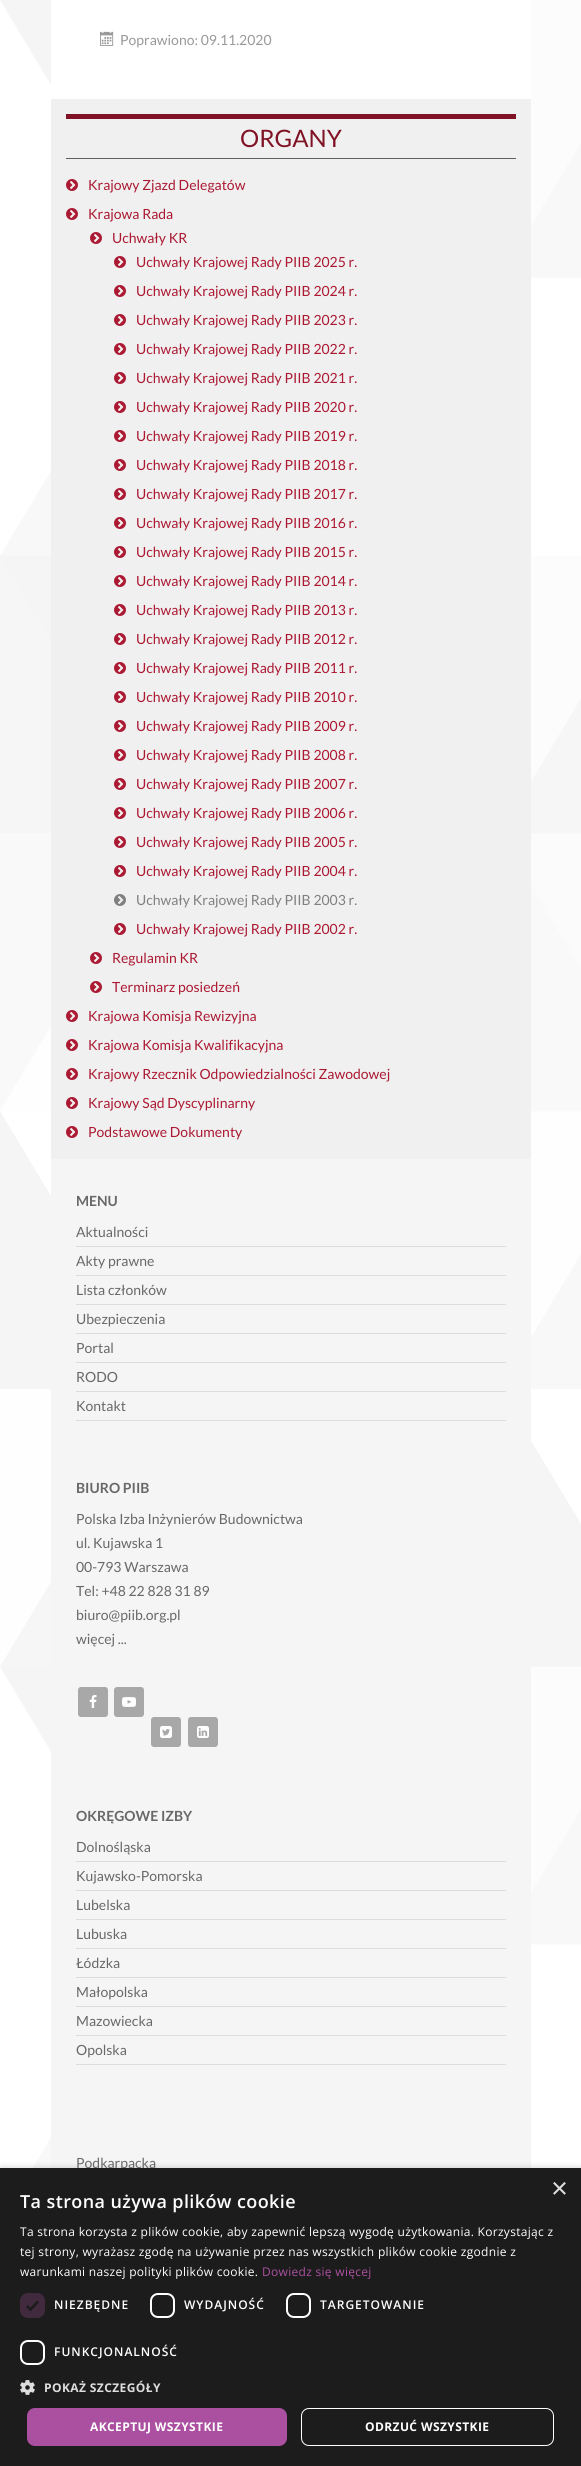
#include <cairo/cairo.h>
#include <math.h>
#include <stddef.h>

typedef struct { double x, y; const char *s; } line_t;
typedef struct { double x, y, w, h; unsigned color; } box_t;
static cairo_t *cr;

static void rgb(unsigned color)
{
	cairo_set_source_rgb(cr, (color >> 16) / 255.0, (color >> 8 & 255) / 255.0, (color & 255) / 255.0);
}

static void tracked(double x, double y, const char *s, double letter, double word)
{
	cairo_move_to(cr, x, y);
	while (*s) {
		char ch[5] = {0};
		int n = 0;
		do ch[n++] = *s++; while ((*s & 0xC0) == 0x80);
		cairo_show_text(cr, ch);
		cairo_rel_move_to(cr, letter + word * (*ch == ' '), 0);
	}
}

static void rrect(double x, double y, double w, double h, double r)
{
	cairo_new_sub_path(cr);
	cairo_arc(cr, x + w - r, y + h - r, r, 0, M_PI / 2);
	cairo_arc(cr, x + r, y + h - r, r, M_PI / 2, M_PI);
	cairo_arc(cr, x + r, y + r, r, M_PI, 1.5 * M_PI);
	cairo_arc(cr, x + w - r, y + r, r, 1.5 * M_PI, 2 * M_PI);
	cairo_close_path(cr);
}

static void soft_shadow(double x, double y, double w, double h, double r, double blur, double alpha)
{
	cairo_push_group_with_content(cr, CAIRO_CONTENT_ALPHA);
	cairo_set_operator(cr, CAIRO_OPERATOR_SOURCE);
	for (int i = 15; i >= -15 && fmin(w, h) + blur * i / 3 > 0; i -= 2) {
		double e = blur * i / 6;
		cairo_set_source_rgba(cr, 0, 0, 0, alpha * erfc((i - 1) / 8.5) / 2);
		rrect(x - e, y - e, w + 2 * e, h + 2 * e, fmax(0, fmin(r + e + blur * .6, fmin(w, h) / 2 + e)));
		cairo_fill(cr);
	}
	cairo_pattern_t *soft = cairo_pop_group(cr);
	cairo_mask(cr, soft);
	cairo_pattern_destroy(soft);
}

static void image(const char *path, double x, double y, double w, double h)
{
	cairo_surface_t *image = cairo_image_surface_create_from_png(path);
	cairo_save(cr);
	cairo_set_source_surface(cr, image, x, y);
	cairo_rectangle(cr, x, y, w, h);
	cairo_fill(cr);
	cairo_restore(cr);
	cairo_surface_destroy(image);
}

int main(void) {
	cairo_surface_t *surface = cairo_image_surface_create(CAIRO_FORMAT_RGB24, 581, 2466);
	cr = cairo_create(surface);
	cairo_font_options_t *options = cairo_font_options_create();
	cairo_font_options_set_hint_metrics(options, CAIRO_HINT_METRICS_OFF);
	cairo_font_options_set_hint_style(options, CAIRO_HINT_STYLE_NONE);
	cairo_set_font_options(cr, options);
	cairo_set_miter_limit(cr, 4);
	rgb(0xffffff);
	cairo_paint(cr);
	image("img/1.png", 0, 0, 581, 2168);
	rgb(0xffffff);
	cairo_rectangle(cr, 51, 0, 480, 99);
	cairo_fill(cr);
	image("img/2.png", 100, 31, 14, 15);
	{
		static const box_t items[] = {
			{51, 99, 480, 1060, 0xf0f0f0},
			{66, 158, 450, 1, 0x5e5e5e},
			{66, 114, 450, 5, 0x7f1225},
		};
		for (size_t i = 0; i < sizeof items / sizeof *items; i++) {
			rgb(items[i].color);
			cairo_rectangle(cr, items[i].x, items[i].y, items[i].w, items[i].h);
			cairo_fill(cr);
		}
	}
	image("img/3.png", 66, 179, 12, 12);
	image("img/3.png", 66, 208, 12, 12);
	image("img/3.png", 90, 232, 12, 12);
	image("img/3.png", 114, 256, 12, 12);
	image("img/3.png", 114, 285, 12, 12);
	image("img/3.png", 114, 314, 12, 12);
	image("img/3.png", 114, 343, 12, 12);
	image("img/3.png", 114, 372, 12, 12);
	image("img/3.png", 114, 401, 12, 12);
	image("img/3.png", 114, 430, 12, 12);
	image("img/3.png", 114, 459, 12, 12);
	image("img/3.png", 114, 488, 12, 12);
	image("img/3.png", 114, 517, 12, 12);
	image("img/3.png", 114, 546, 12, 12);
	image("img/3.png", 114, 575, 12, 12);
	image("img/3.png", 114, 604, 12, 12);
	image("img/3.png", 114, 633, 12, 12);
	image("img/3.png", 114, 662, 12, 12);
	image("img/3.png", 114, 691, 12, 12);
	image("img/3.png", 114, 720, 12, 12);
	image("img/3.png", 114, 749, 12, 12);
	image("img/3.png", 114, 778, 12, 12);
	image("img/3.png", 114, 807, 12, 12);
	image("img/3.png", 114, 836, 12, 12);
	image("img/3.png", 114, 865, 12, 12);
	image("img/4.png", 114, 894, 12, 12);
	image("img/3.png", 114, 923, 12, 12);
	image("img/3.png", 90, 952, 12, 12);
	image("img/3.png", 90, 981, 12, 12);
	image("img/3.png", 66, 1010, 12, 12);
	image("img/3.png", 66, 1039, 12, 12);
	image("img/3.png", 66, 1068, 12, 12);
	image("img/3.png", 66, 1097, 12, 12);
	image("img/3.png", 66, 1126, 12, 12);
	{
		static const box_t items[] = {
			{51, 1159, 480, 1009, 0xf5f5f5},
			{76, 1246, 430, 1, 0xdcdcdc},
			{76, 1275, 430, 1, 0xdcdcdc},
			{76, 1304, 430, 1, 0xdcdcdc},
			{76, 1333, 430, 1, 0xdcdcdc},
			{76, 1362, 430, 1, 0xdcdcdc},
			{76, 1391, 430, 1, 0xdcdcdc},
			{76, 1420, 430, 1, 0xdcdcdc},
		};
		for (size_t i = 0; i < sizeof items / sizeof *items; i++) {
			rgb(items[i].color);
			cairo_rectangle(cr, items[i].x, items[i].y, items[i].w, items[i].h);
			cairo_fill(cr);
		}
	}
	rgb(0xa8a8a8);
	rrect(78, 1687, 30, 30, 3);
	cairo_fill(cr);
	image("img/5.png", 89, 1695, 8, 13);
	rrect(114, 1687, 30, 30, 3);
	cairo_fill(cr);
	image("img/6.png", 122, 1697, 14, 10);
	rrect(151, 1717, 30, 30, 3);
	cairo_fill(cr);
	image("img/7.png", 160, 1726, 12, 12);
	rrect(188, 1717, 30, 30, 3);
	cairo_fill(cr);
	image("img/8.png", 197, 1726, 12, 12);
	{
		static const box_t items[] = {
			{76, 1861, 430, 1, 0xdcdcdc},
			{76, 1890, 430, 1, 0xdcdcdc},
			{76, 1919, 430, 1, 0xdcdcdc},
			{76, 1948, 430, 1, 0xdcdcdc},
			{76, 1977, 430, 1, 0xdcdcdc},
			{76, 2006, 430, 1, 0xdcdcdc},
			{76, 2035, 430, 1, 0xdcdcdc},
			{76, 2064, 430, 1, 0xdcdcdc},
		};
		for (size_t i = 0; i < sizeof items / sizeof *items; i++) {
			rgb(items[i].color);
			cairo_rectangle(cr, items[i].x, items[i].y, items[i].w, items[i].h);
			cairo_fill(cr);
		}
	}
	rgb(0x000000);
	soft_shadow(1, 2170, 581, 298, 0, 4, 0.35);
	cairo_select_font_face(cr, "Lato", CAIRO_FONT_SLANT_NORMAL, CAIRO_FONT_WEIGHT_NORMAL);
	cairo_set_font_size(cr, 14);
	rgb(0x999999);
	cairo_move_to(cr, 120, 45);
	cairo_show_text(cr, "Poprawiono: 09.11.2020");
	cairo_set_font_size(cr, 24);
	rgb(0x7f1225);
	cairo_move_to(cr, 240, 147);
	cairo_show_text(cr, "ORGANY");
	cairo_set_font_size(cr, 14);
	rgb(0xab1932);
	{
		static const line_t items[] = {
			{88, 190, "Krajowy Zjazd Delegatów"},
			{88, 219, "Krajowa Rada"},
			{112, 243, "Uchwały KR"},
			{136, 267, "Uchwały Krajowej Rady PIIB 2025 r."},
			{136, 296, "Uchwały Krajowej Rady PIIB 2024 r."},
			{136, 325, "Uchwały Krajowej Rady PIIB 2023 r."},
			{136, 354, "Uchwały Krajowej Rady PIIB 2022 r."},
			{136, 383, "Uchwały Krajowej Rady PIIB 2021 r."},
			{136, 412, "Uchwały Krajowej Rady PIIB 2020 r."},
			{136, 441, "Uchwały Krajowej Rady PIIB 2019 r."},
			{136, 470, "Uchwały Krajowej Rady PIIB 2018 r."},
			{136, 499, "Uchwały Krajowej Rady PIIB 2017 r."},
			{136, 528, "Uchwały Krajowej Rady PIIB 2016 r."},
			{136, 557, "Uchwały Krajowej Rady PIIB 2015 r."},
			{136, 586, "Uchwały Krajowej Rady PIIB 2014 r."},
			{136, 615, "Uchwały Krajowej Rady PIIB 2013 r."},
			{136, 644, "Uchwały Krajowej Rady PIIB 2012 r."},
			{136, 673, "Uchwały Krajowej Rady PIIB 2011 r."},
			{136, 702, "Uchwały Krajowej Rady PIIB 2010 r."},
			{136, 731, "Uchwały Krajowej Rady PIIB 2009 r."},
			{136, 760, "Uchwały Krajowej Rady PIIB 2008 r."},
			{136, 789, "Uchwały Krajowej Rady PIIB 2007 r."},
			{136, 818, "Uchwały Krajowej Rady PIIB 2006 r."},
			{136, 847, "Uchwały Krajowej Rady PIIB 2005 r."},
			{136, 876, "Uchwały Krajowej Rady PIIB 2004 r."},
		};
		for (size_t i = 0; i < sizeof items / sizeof *items; i++) {
			cairo_move_to(cr, items[i].x, items[i].y);
			cairo_show_text(cr, items[i].s);
		}
	}
	rgb(0x808080);
	cairo_move_to(cr, 136, 905);
	cairo_show_text(cr, "Uchwały Krajowej Rady PIIB 2003 r.");
	rgb(0xab1932);
	{
		static const line_t items[] = {
			{136, 934, "Uchwały Krajowej Rady PIIB 2002 r."},
			{112, 963, "Regulamin KR"},
			{112, 992, "Terminarz posiedzeń"},
			{88, 1021, "Krajowa Komisja Rewizyjna"},
			{88, 1050, "Krajowa Komisja Kwalifikacyjna"},
			{88, 1079, "Krajowy Rzecznik Odpowiedzialności Zawodowej"},
			{88, 1108, "Krajowy Sąd Dyscyplinarny"},
			{88, 1137, "Podstawowe Dokumenty"},
		};
		for (size_t i = 0; i < sizeof items / sizeof *items; i++) {
			cairo_move_to(cr, items[i].x, items[i].y);
			cairo_show_text(cr, items[i].s);
		}
	}
	cairo_select_font_face(cr, "Lato", CAIRO_FONT_SLANT_NORMAL, CAIRO_FONT_WEIGHT_BOLD);
	rgb(0x686868);
	cairo_move_to(cr, 76, 1206);
	cairo_show_text(cr, "MENU");
	cairo_select_font_face(cr, "Lato", CAIRO_FONT_SLANT_NORMAL, CAIRO_FONT_WEIGHT_NORMAL);
	{
		static const line_t items[] = {
			{76, 1237, "Aktualności"},
			{76, 1266, "Akty prawne"},
			{76, 1295, "Lista członków"},
			{76, 1324, "Ubezpieczenia"},
			{76, 1353, "Portal"},
			{76, 1382, "RODO"},
			{76, 1411, "Kontakt"},
		};
		for (size_t i = 0; i < sizeof items / sizeof *items; i++) {
			cairo_move_to(cr, items[i].x, items[i].y);
			cairo_show_text(cr, items[i].s);
		}
	}
	cairo_select_font_face(cr, "Lato", CAIRO_FONT_SLANT_NORMAL, CAIRO_FONT_WEIGHT_BOLD);
	cairo_move_to(cr, 76, 1493);
	cairo_show_text(cr, "BIURO PIIB");
	cairo_select_font_face(cr, "Lato", CAIRO_FONT_SLANT_NORMAL, CAIRO_FONT_WEIGHT_NORMAL);
	{
		static const line_t items[] = {
			{76, 1524, "Polska Izba Inżynierów Budownictwa"},
			{76, 1548, "ul. Kujawska 1"},
			{76, 1572, "00-793 Warszawa"},
			{76, 1596, "Tel: +48 22 828 31 89"},
			{76, 1620, "biuro@piib.org.pl"},
			{76, 1644, "więcej ..."},
		};
		for (size_t i = 0; i < sizeof items / sizeof *items; i++) {
			cairo_move_to(cr, items[i].x, items[i].y);
			cairo_show_text(cr, items[i].s);
		}
	}
	cairo_select_font_face(cr, "Lato", CAIRO_FONT_SLANT_NORMAL, CAIRO_FONT_WEIGHT_BOLD);
	cairo_move_to(cr, 76, 1821);
	cairo_show_text(cr, "OKRĘGOWE IZBY");
	cairo_select_font_face(cr, "Lato", CAIRO_FONT_SLANT_NORMAL, CAIRO_FONT_WEIGHT_NORMAL);
	{
		static const line_t items[] = {
			{76, 1852, "Dolnośląska"},
			{76, 1881, "Kujawsko-Pomorska"},
			{76, 1910, "Lubelska"},
			{76, 1939, "Lubuska"},
			{76, 1968, "Łódzka"},
			{76, 1997, "Małopolska"},
			{76, 2026, "Mazowiecka"},
			{76, 2055, "Opolska"},
			{76, 2168, "Podkarpacka"},
		};
		for (size_t i = 0; i < sizeof items / sizeof *items; i++) {
			cairo_move_to(cr, items[i].x, items[i].y);
			cairo_show_text(cr, items[i].s);
		}
	}
	rgb(0x1c1c1c);
	cairo_rectangle(cr, 0, 2168, 581, 298);
	cairo_fill(cr);
	cairo_select_font_face(cr, "Liberation Sans", CAIRO_FONT_SLANT_NORMAL, CAIRO_FONT_WEIGHT_NORMAL);
	cairo_set_font_size(cr, 29);
	rgb(0xdddddd);
	cairo_move_to(cr, 551, 2198);
	cairo_show_text(cr, "×");
	cairo_select_font_face(cr, "Open Sans SemiBold", CAIRO_FONT_SLANT_NORMAL, CAIRO_FONT_WEIGHT_NORMAL);
	cairo_set_font_size(cr, 18);
	rgb(0xffffff);
	tracked(20, 2208, "Ta strona używa plików cookie", 0.4, 0);
	cairo_select_font_face(cr, "Open Sans", CAIRO_FONT_SLANT_NORMAL, CAIRO_FONT_WEIGHT_NORMAL);
	cairo_set_font_size(cr, 12);
	{
		static const line_t items[] = {
			{20, 2236, "Ta strona korzysta z plików cookie, aby zapewnić lepszą wygodę użytkowania. Korzystając z"},
			{20, 2256, "tej strony, wyrażasz zgodę na używanie przez nas wszystkich plików cookie zgodnie z"},
			{20, 2276, "warunkami naszej polityki plików cookie."},
		};
		for (size_t i = 0; i < sizeof items / sizeof *items; i++) {
			tracked(items[i].x, items[i].y, items[i].s, 0.3, 0);
		}
	}
	rgb(0xab50a0);
	tracked(262, 2276, "Dowiedz się więcej", 0.3, 0);
	rgb(0x412a3e);
	rrect(20, 2293, 25, 25, 8);
	cairo_fill(cr);
	cairo_new_path(cr);
	cairo_move_to(cr, 27, 2306);
	cairo_line_to(cr, 30.5, 2309.5);
	cairo_line_to(cr, 38, 2301.5);
	rgb(0x1c1c1c);
	cairo_set_line_width(cr, 2.6);
	cairo_stroke(cr);
	cairo_select_font_face(cr, "Open Sans SemiBold", CAIRO_FONT_SLANT_NORMAL, CAIRO_FONT_WEIGHT_NORMAL);
	rgb(0xffffff);
	tracked(54, 2309, "NIEZBĘDNE", 1, 0);
	rrect(151, 2294, 23, 23, 7);
	cairo_set_line_width(cr, 2);
	cairo_stroke(cr);
	tracked(184, 2309, "WYDAJNOŚĆ", 1, 0);
	rrect(287, 2294, 23, 23, 7);
	cairo_stroke(cr);
	tracked(320, 2309, "TARGETOWANIE", 1, 0);
	rrect(21, 2341, 23, 23, 7);
	cairo_stroke(cr);
	tracked(54, 2356, "FUNKCJONALNOŚĆ", 1, 0);
	image("img/9.png", 20, 2380, 15, 15);
	cairo_select_font_face(cr, "Open Sans", CAIRO_FONT_SLANT_NORMAL, CAIRO_FONT_WEIGHT_BOLD);
	rgb(0xdddddd);
	tracked(44, 2392, "POKAŻ SZCZEGÓŁY", 0.4, 0);
	rgb(0xab50a0);
	rrect(27, 2408, 260, 38, 8);
	cairo_fill(cr);
	rgb(0xffffff);
	tracked(90, 2431, "AKCEPTUJ WSZYSTKIE", 0.4, 0);
	rrect(301.5, 2408.5, 252, 37, 7.5);
	cairo_set_line_width(cr, 1);
	cairo_stroke(cr);
	tracked(365, 2431, "ODRZUĆ WSZYSTKIE", 0.4, 0);
	cairo_surface_write_to_png(surface, "page.png");
	cairo_font_options_destroy(options);
	cairo_destroy(cr);
	cairo_surface_destroy(surface);
	return 0;
}
